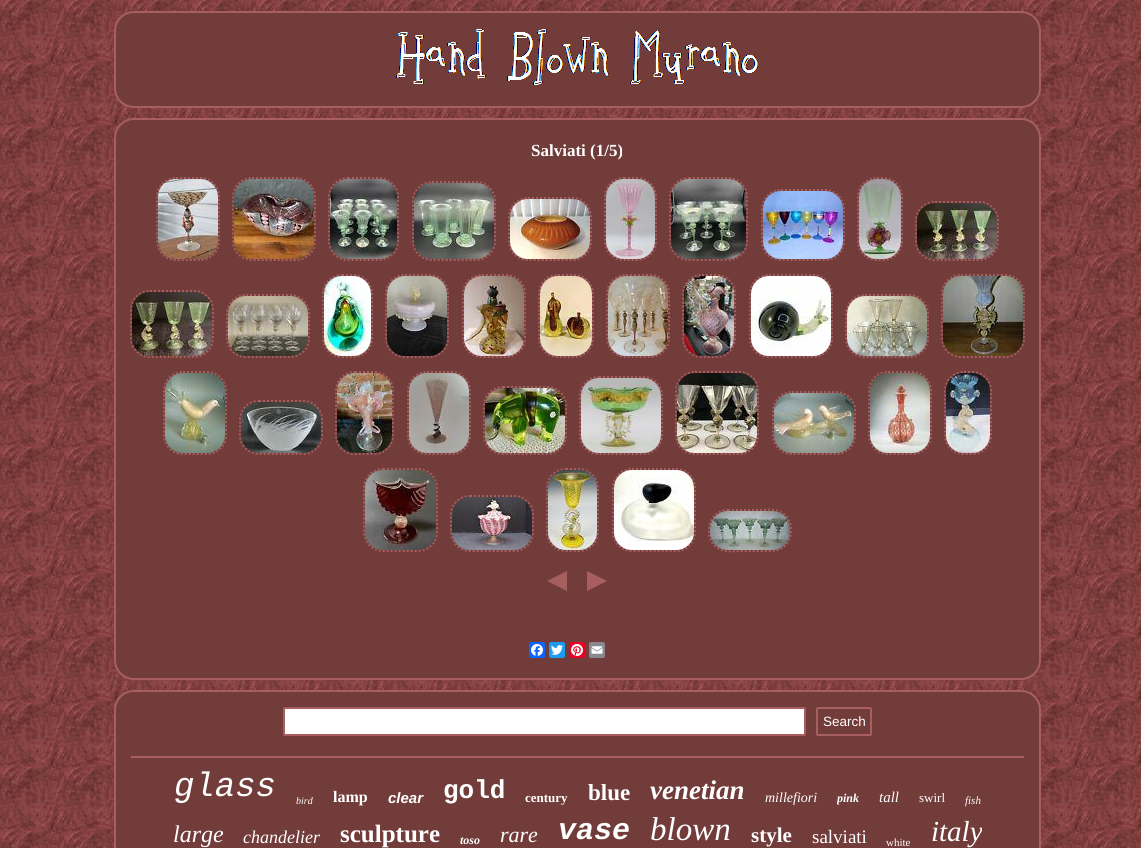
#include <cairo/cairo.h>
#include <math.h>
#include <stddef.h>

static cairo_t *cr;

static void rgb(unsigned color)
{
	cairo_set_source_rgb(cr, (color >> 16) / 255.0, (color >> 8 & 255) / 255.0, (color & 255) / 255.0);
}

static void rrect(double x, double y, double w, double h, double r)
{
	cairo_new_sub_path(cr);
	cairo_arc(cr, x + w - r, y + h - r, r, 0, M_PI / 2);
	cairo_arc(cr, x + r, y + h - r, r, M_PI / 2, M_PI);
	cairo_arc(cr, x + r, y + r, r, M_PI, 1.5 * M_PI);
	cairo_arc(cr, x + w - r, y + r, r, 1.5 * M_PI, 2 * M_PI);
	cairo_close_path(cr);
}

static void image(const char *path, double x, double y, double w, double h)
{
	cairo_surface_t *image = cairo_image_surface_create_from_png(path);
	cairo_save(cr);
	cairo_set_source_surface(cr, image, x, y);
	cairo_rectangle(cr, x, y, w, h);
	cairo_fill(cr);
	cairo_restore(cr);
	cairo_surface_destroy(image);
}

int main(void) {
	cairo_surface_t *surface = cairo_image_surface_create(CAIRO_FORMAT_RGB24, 1141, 848);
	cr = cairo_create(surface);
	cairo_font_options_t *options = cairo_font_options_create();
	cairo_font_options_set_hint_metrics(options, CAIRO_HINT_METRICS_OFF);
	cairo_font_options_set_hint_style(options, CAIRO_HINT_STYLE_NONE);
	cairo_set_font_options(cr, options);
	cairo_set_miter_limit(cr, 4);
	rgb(0xffffff);
	cairo_paint(cr);
	image("img/1.png", 0, 0, 1141, 848);
	rgb(0x723c3a);
	rrect(115, 12, 925, 95, 19);
	cairo_fill_preserve(cr);
	rgb(0xa65e5f);
	cairo_stroke(cr);
	image("img/2.png", 396, 29, 362, 56);
	rgb(0x723c3a);
	rrect(115, 119, 925, 560, 19);
	cairo_fill_preserve(cr);
	rgb(0xa65e5f);
	cairo_stroke(cr);
	cairo_new_path(cr);
	cairo_move_to(cr, 176, 178);
	cairo_line_to(cr, 200, 178);
	cairo_curve_to(cr, 210.5, 178, 219, 186.5, 219, 197);
	cairo_line_to(cr, 219, 241);
	cairo_curve_to(cr, 219, 251.5, 210.5, 260, 200, 260);
	cairo_line_to(cr, 176, 260);
	cairo_curve_to(cr, 165.5, 260, 157, 251.5, 157, 241);
	cairo_line_to(cr, 157, 197);
	cairo_curve_to(cr, 157, 186.5, 165.5, 178, 176, 178);
	cairo_close_path(cr);
	cairo_set_dash(cr, (double[]){2, 2}, 2, 0);
	cairo_stroke(cr);
	cairo_new_path(cr);
	cairo_move_to(cr, 252, 178);
	cairo_line_to(cr, 296, 178);
	cairo_curve_to(cr, 306.5, 178, 315, 186.5, 315, 197);
	cairo_line_to(cr, 315, 241);
	cairo_curve_to(cr, 315, 251.5, 306.5, 260, 296, 260);
	cairo_line_to(cr, 252, 260);
	cairo_curve_to(cr, 241.5, 260, 233, 251.5, 233, 241);
	cairo_line_to(cr, 233, 197);
	cairo_curve_to(cr, 233, 186.5, 241.5, 178, 252, 178);
	cairo_close_path(cr);
	cairo_stroke(cr);
	cairo_new_path(cr);
	cairo_move_to(cr, 348, 178);
	cairo_line_to(cr, 379, 178);
	cairo_curve_to(cr, 389.5, 178, 398, 186.5, 398, 197);
	cairo_line_to(cr, 398, 241);
	cairo_curve_to(cr, 398, 251.5, 389.5, 260, 379, 260);
	cairo_line_to(cr, 348, 260);
	cairo_curve_to(cr, 337.5, 260, 329, 251.5, 329, 241);
	cairo_line_to(cr, 329, 197);
	cairo_curve_to(cr, 329, 186.5, 337.5, 178, 348, 178);
	cairo_close_path(cr);
	cairo_stroke(cr);
	cairo_new_path(cr);
	cairo_move_to(cr, 624, 178);
	cairo_line_to(cr, 637, 178);
	cairo_curve_to(cr, 647.5, 178, 656, 186.5, 656, 197);
	cairo_line_to(cr, 656, 241);
	cairo_curve_to(cr, 656, 251.5, 647.5, 260, 637, 260);
	cairo_line_to(cr, 624, 260);
	cairo_curve_to(cr, 613.5, 260, 605, 251.5, 605, 241);
	cairo_line_to(cr, 605, 197);
	cairo_curve_to(cr, 605, 186.5, 613.5, 178, 624, 178);
	cairo_close_path(cr);
	cairo_stroke(cr);
	cairo_new_path(cr);
	cairo_move_to(cr, 689, 178);
	cairo_line_to(cr, 728, 178);
	cairo_curve_to(cr, 738.5, 178, 747, 186.5, 747, 197);
	cairo_line_to(cr, 747, 241);
	cairo_curve_to(cr, 747, 251.5, 738.5, 260, 728, 260);
	cairo_line_to(cr, 689, 260);
	cairo_curve_to(cr, 678.5, 260, 670, 251.5, 670, 241);
	cairo_line_to(cr, 670, 197);
	cairo_curve_to(cr, 670, 186.5, 678.5, 178, 689, 178);
	cairo_close_path(cr);
	cairo_stroke(cr);
	cairo_new_path(cr);
	cairo_move_to(cr, 877, 178);
	cairo_line_to(cr, 883, 178);
	cairo_curve_to(cr, 893.5, 178, 902, 186.5, 902, 197);
	cairo_line_to(cr, 902, 241);
	cairo_curve_to(cr, 902, 251.5, 893.5, 260, 883, 260);
	cairo_line_to(cr, 877, 260);
	cairo_curve_to(cr, 866.5, 260, 858, 251.5, 858, 241);
	cairo_line_to(cr, 858, 197);
	cairo_curve_to(cr, 858, 186.5, 866.5, 178, 877, 178);
	cairo_close_path(cr);
	cairo_stroke(cr);
	image("img/3.png", 158, 179, 60, 80);
	image("img/4.png", 234, 179, 80, 80);
	image("img/5.png", 330, 179, 67, 80);
	cairo_new_path(cr);
	cairo_move_to(cr, 432, 182);
	cairo_line_to(cr, 476, 182);
	cairo_curve_to(cr, 486.5, 182, 495, 190.5, 495, 201);
	cairo_line_to(cr, 495, 241);
	cairo_curve_to(cr, 495, 251.5, 486.5, 260, 476, 260);
	cairo_line_to(cr, 432, 260);
	cairo_curve_to(cr, 421.5, 260, 413, 251.5, 413, 241);
	cairo_line_to(cr, 413, 201);
	cairo_curve_to(cr, 413, 190.5, 421.5, 182, 432, 182);
	cairo_close_path(cr);
	cairo_stroke(cr);
	image("img/6.png", 606, 179, 49, 80);
	image("img/7.png", 671, 179, 75, 80);
	image("img/8.png", 859, 179, 42, 80);
	image("img/9.png", 414, 183, 80, 76);
	cairo_new_path(cr);
	cairo_move_to(cr, 781, 190);
	cairo_line_to(cr, 825, 190);
	cairo_curve_to(cr, 835.5, 190, 844, 198.5, 844, 209);
	cairo_line_to(cr, 844, 241);
	cairo_curve_to(cr, 844, 251.5, 835.5, 260, 825, 260);
	cairo_line_to(cr, 781, 260);
	cairo_curve_to(cr, 770.5, 260, 762, 251.5, 762, 241);
	cairo_line_to(cr, 762, 209);
	cairo_curve_to(cr, 762, 198.5, 770.5, 190, 781, 190);
	cairo_close_path(cr);
	cairo_stroke(cr);
	cairo_new_path(cr);
	cairo_move_to(cr, 528, 198);
	cairo_line_to(cr, 572, 198);
	cairo_curve_to(cr, 582.5, 198, 591, 206.5, 591, 217);
	cairo_line_to(cr, 591, 241);
	cairo_curve_to(cr, 591, 251.5, 582.5, 260, 572, 260);
	cairo_line_to(cr, 528, 260);
	cairo_curve_to(cr, 517.5, 260, 509, 251.5, 509, 241);
	cairo_line_to(cr, 509, 217);
	cairo_curve_to(cr, 509, 206.5, 517.5, 198, 528, 198);
	cairo_close_path(cr);
	cairo_stroke(cr);
	image("img/10.png", 763, 191, 80, 68);
	image("img/11.png", 510, 199, 80, 60);
	cairo_new_path(cr);
	cairo_move_to(cr, 935, 202);
	cairo_line_to(cr, 979, 202);
	cairo_curve_to(cr, 989.5, 202, 998, 210.5, 998, 221);
	cairo_line_to(cr, 998, 241);
	cairo_curve_to(cr, 998, 251.5, 989.5, 260, 979, 260);
	cairo_line_to(cr, 935, 260);
	cairo_curve_to(cr, 924.5, 260, 916, 251.5, 916, 241);
	cairo_line_to(cr, 916, 221);
	cairo_curve_to(cr, 916, 210.5, 924.5, 202, 935, 202);
	cairo_close_path(cr);
	cairo_stroke(cr);
	image("img/12.png", 917, 203, 80, 56);
	cairo_new_path(cr);
	cairo_move_to(cr, 342, 275);
	cairo_line_to(cr, 353, 275);
	cairo_curve_to(cr, 363.5, 275, 372, 283.5, 372, 294);
	cairo_line_to(cr, 372, 338);
	cairo_curve_to(cr, 372, 348.5, 363.5, 357, 353, 357);
	cairo_line_to(cr, 342, 357);
	cairo_curve_to(cr, 331.5, 357, 323, 348.5, 323, 338);
	cairo_line_to(cr, 323, 294);
	cairo_curve_to(cr, 323, 283.5, 331.5, 275, 342, 275);
	cairo_close_path(cr);
	cairo_stroke(cr);
	cairo_new_path(cr);
	cairo_move_to(cr, 405, 275);
	cairo_line_to(cr, 429, 275);
	cairo_curve_to(cr, 439.5, 275, 448, 283.5, 448, 294);
	cairo_line_to(cr, 448, 338);
	cairo_curve_to(cr, 448, 348.5, 439.5, 357, 429, 357);
	cairo_line_to(cr, 405, 357);
	cairo_curve_to(cr, 394.5, 357, 386, 348.5, 386, 338);
	cairo_line_to(cr, 386, 294);
	cairo_curve_to(cr, 386, 283.5, 394.5, 275, 405, 275);
	cairo_close_path(cr);
	cairo_stroke(cr);
	cairo_new_path(cr);
	cairo_move_to(cr, 482, 275);
	cairo_line_to(cr, 506, 275);
	cairo_curve_to(cr, 516.5, 275, 525, 283.5, 525, 294);
	cairo_line_to(cr, 525, 338);
	cairo_curve_to(cr, 525, 348.5, 516.5, 357, 506, 357);
	cairo_line_to(cr, 482, 357);
	cairo_curve_to(cr, 471.5, 357, 463, 348.5, 463, 338);
	cairo_line_to(cr, 463, 294);
	cairo_curve_to(cr, 463, 283.5, 471.5, 275, 482, 275);
	cairo_close_path(cr);
	cairo_stroke(cr);
	cairo_new_path(cr);
	cairo_move_to(cr, 558, 275);
	cairo_line_to(cr, 574, 275);
	cairo_curve_to(cr, 584.5, 275, 593, 283.5, 593, 294);
	cairo_line_to(cr, 593, 338);
	cairo_curve_to(cr, 593, 348.5, 584.5, 357, 574, 357);
	cairo_line_to(cr, 558, 357);
	cairo_curve_to(cr, 547.5, 357, 539, 348.5, 539, 338);
	cairo_line_to(cr, 539, 294);
	cairo_curve_to(cr, 539, 283.5, 547.5, 275, 558, 275);
	cairo_close_path(cr);
	cairo_stroke(cr);
	cairo_new_path(cr);
	cairo_move_to(cr, 626, 275);
	cairo_line_to(cr, 650, 275);
	cairo_curve_to(cr, 660.5, 275, 669, 283.5, 669, 294);
	cairo_line_to(cr, 669, 338);
	cairo_curve_to(cr, 669, 348.5, 660.5, 357, 650, 357);
	cairo_line_to(cr, 626, 357);
	cairo_curve_to(cr, 615.5, 357, 607, 348.5, 607, 338);
	cairo_line_to(cr, 607, 294);
	cairo_curve_to(cr, 607, 283.5, 615.5, 275, 626, 275);
	cairo_close_path(cr);
	cairo_stroke(cr);
	cairo_new_path(cr);
	cairo_move_to(cr, 702, 275);
	cairo_line_to(cr, 716, 275);
	cairo_curve_to(cr, 726.5, 275, 735, 283.5, 735, 294);
	cairo_line_to(cr, 735, 338);
	cairo_curve_to(cr, 735, 348.5, 726.5, 357, 716, 357);
	cairo_line_to(cr, 702, 357);
	cairo_curve_to(cr, 691.5, 357, 683, 348.5, 683, 338);
	cairo_line_to(cr, 683, 294);
	cairo_curve_to(cr, 683, 283.5, 691.5, 275, 702, 275);
	cairo_close_path(cr);
	cairo_stroke(cr);
	cairo_new_path(cr);
	cairo_move_to(cr, 769, 275);
	cairo_line_to(cr, 813, 275);
	cairo_curve_to(cr, 823.5, 275, 832, 283.5, 832, 294);
	cairo_line_to(cr, 832, 338);
	cairo_curve_to(cr, 832, 348.5, 823.5, 357, 813, 357);
	cairo_line_to(cr, 769, 357);
	cairo_curve_to(cr, 758.5, 357, 750, 348.5, 750, 338);
	cairo_line_to(cr, 750, 294);
	cairo_curve_to(cr, 750, 283.5, 758.5, 275, 769, 275);
	cairo_close_path(cr);
	cairo_stroke(cr);
	cairo_new_path(cr);
	cairo_move_to(cr, 961, 275);
	cairo_line_to(cr, 1005, 275);
	cairo_curve_to(cr, 1015.5, 275, 1024, 283.5, 1024, 294);
	cairo_line_to(cr, 1024, 338);
	cairo_curve_to(cr, 1024, 348.5, 1015.5, 357, 1005, 357);
	cairo_line_to(cr, 961, 357);
	cairo_curve_to(cr, 950.5, 357, 942, 348.5, 942, 338);
	cairo_line_to(cr, 942, 294);
	cairo_curve_to(cr, 942, 283.5, 950.5, 275, 961, 275);
	cairo_close_path(cr);
	cairo_stroke(cr);
	cairo_new_path(cr);
	cairo_move_to(cr, 150, 291);
	cairo_line_to(cr, 194, 291);
	cairo_curve_to(cr, 204.5, 291, 213, 299.5, 213, 310);
	cairo_line_to(cr, 213, 338);
	cairo_curve_to(cr, 213, 348.5, 204.5, 357, 194, 357);
	cairo_line_to(cr, 150, 357);
	cairo_curve_to(cr, 139.5, 357, 131, 348.5, 131, 338);
	cairo_line_to(cr, 131, 310);
	cairo_curve_to(cr, 131, 299.5, 139.5, 291, 150, 291);
	cairo_close_path(cr);
	cairo_stroke(cr);
	image("img/13.png", 324, 276, 47, 80);
	image("img/14.png", 387, 276, 60, 80);
	image("img/15.png", 464, 276, 60, 80);
	image("img/16.png", 540, 276, 52, 80);
	image("img/17.png", 608, 276, 60, 80);
	image("img/18.png", 684, 276, 50, 80);
	image("img/19.png", 751, 276, 80, 80);
	image("img/20.png", 943, 276, 80, 80);
	image("img/21.png", 132, 292, 80, 64);
	cairo_new_path(cr);
	cairo_move_to(cr, 246, 295);
	cairo_line_to(cr, 290, 295);
	cairo_curve_to(cr, 300.5, 295, 309, 303.5, 309, 314);
	cairo_line_to(cr, 309, 338);
	cairo_curve_to(cr, 309, 348.5, 300.5, 357, 290, 357);
	cairo_line_to(cr, 246, 357);
	cairo_curve_to(cr, 235.5, 357, 227, 348.5, 227, 338);
	cairo_line_to(cr, 227, 314);
	cairo_curve_to(cr, 227, 303.5, 235.5, 295, 246, 295);
	cairo_close_path(cr);
	cairo_stroke(cr);
	cairo_new_path(cr);
	cairo_move_to(cr, 865, 295);
	cairo_line_to(cr, 909, 295);
	cairo_curve_to(cr, 919.5, 295, 928, 303.5, 928, 314);
	cairo_line_to(cr, 928, 338);
	cairo_curve_to(cr, 928, 348.5, 919.5, 357, 909, 357);
	cairo_line_to(cr, 865, 357);
	cairo_curve_to(cr, 854.5, 357, 846, 348.5, 846, 338);
	cairo_line_to(cr, 846, 314);
	cairo_curve_to(cr, 846, 303.5, 854.5, 295, 865, 295);
	cairo_close_path(cr);
	cairo_stroke(cr);
	image("img/22.png", 228, 296, 80, 60);
	image("img/23.png", 847, 296, 80, 60);
	cairo_new_path(cr);
	cairo_move_to(cr, 183, 372);
	cairo_line_to(cr, 207, 372);
	cairo_curve_to(cr, 217.5, 372, 226, 380.5, 226, 391);
	cairo_line_to(cr, 226, 435);
	cairo_curve_to(cr, 226, 445.5, 217.5, 454, 207, 454);
	cairo_line_to(cr, 183, 454);
	cairo_curve_to(cr, 172.5, 454, 164, 445.5, 164, 435);
	cairo_line_to(cr, 164, 391);
	cairo_curve_to(cr, 164, 380.5, 172.5, 372, 183, 372);
	cairo_close_path(cr);
	cairo_stroke(cr);
	cairo_new_path(cr);
	cairo_move_to(cr, 355, 372);
	cairo_line_to(cr, 374, 372);
	cairo_curve_to(cr, 384.5, 372, 393, 380.5, 393, 391);
	cairo_line_to(cr, 393, 435);
	cairo_curve_to(cr, 393, 445.5, 384.5, 454, 374, 454);
	cairo_line_to(cr, 355, 454);
	cairo_curve_to(cr, 344.5, 454, 336, 445.5, 336, 435);
	cairo_line_to(cr, 336, 391);
	cairo_curve_to(cr, 336, 380.5, 344.5, 372, 355, 372);
	cairo_close_path(cr);
	cairo_stroke(cr);
	cairo_new_path(cr);
	cairo_move_to(cr, 427, 372);
	cairo_line_to(cr, 451, 372);
	cairo_curve_to(cr, 461.5, 372, 470, 380.5, 470, 391);
	cairo_line_to(cr, 470, 435);
	cairo_curve_to(cr, 470, 445.5, 461.5, 454, 451, 454);
	cairo_line_to(cr, 427, 454);
	cairo_curve_to(cr, 416.5, 454, 408, 445.5, 408, 435);
	cairo_line_to(cr, 408, 391);
	cairo_curve_to(cr, 408, 380.5, 416.5, 372, 427, 372);
	cairo_close_path(cr);
	cairo_stroke(cr);
	cairo_new_path(cr);
	cairo_move_to(cr, 695, 372);
	cairo_line_to(cr, 739, 372);
	cairo_curve_to(cr, 749.5, 372, 758, 380.5, 758, 391);
	cairo_line_to(cr, 758, 435);
	cairo_curve_to(cr, 758, 445.5, 749.5, 454, 739, 454);
	cairo_line_to(cr, 695, 454);
	cairo_curve_to(cr, 684.5, 454, 676, 445.5, 676, 435);
	cairo_line_to(cr, 676, 391);
	cairo_curve_to(cr, 676, 380.5, 684.5, 372, 695, 372);
	cairo_close_path(cr);
	cairo_stroke(cr);
	cairo_new_path(cr);
	cairo_move_to(cr, 888, 372);
	cairo_line_to(cr, 912, 372);
	cairo_curve_to(cr, 922.5, 372, 931, 380.5, 931, 391);
	cairo_line_to(cr, 931, 435);
	cairo_curve_to(cr, 931, 445.5, 922.5, 454, 912, 454);
	cairo_line_to(cr, 888, 454);
	cairo_curve_to(cr, 877.5, 454, 869, 445.5, 869, 435);
	cairo_line_to(cr, 869, 391);
	cairo_curve_to(cr, 869, 380.5, 877.5, 372, 888, 372);
	cairo_close_path(cr);
	cairo_stroke(cr);
	cairo_new_path(cr);
	cairo_move_to(cr, 964, 372);
	cairo_line_to(cr, 972, 372);
	cairo_curve_to(cr, 982.5, 372, 991, 380.5, 991, 391);
	cairo_line_to(cr, 991, 435);
	cairo_curve_to(cr, 991, 445.5, 982.5, 454, 972, 454);
	cairo_line_to(cr, 964, 454);
	cairo_curve_to(cr, 953.5, 454, 945, 445.5, 945, 435);
	cairo_line_to(cr, 945, 391);
	cairo_curve_to(cr, 945, 380.5, 953.5, 372, 964, 372);
	cairo_close_path(cr);
	cairo_stroke(cr);
	image("img/24.png", 165, 373, 60, 80);
	image("img/25.png", 337, 373, 55, 80);
	image("img/26.png", 409, 373, 60, 80);
	cairo_new_path(cr);
	cairo_move_to(cr, 599, 377);
	cairo_line_to(cr, 643, 377);
	cairo_curve_to(cr, 653.5, 377, 662, 385.5, 662, 396);
	cairo_line_to(cr, 662, 435);
	cairo_curve_to(cr, 662, 445.5, 653.5, 454, 643, 454);
	cairo_line_to(cr, 599, 454);
	cairo_curve_to(cr, 588.5, 454, 580, 445.5, 580, 435);
	cairo_line_to(cr, 580, 396);
	cairo_curve_to(cr, 580, 385.5, 588.5, 377, 599, 377);
	cairo_close_path(cr);
	cairo_stroke(cr);
	image("img/27.png", 677, 373, 80, 80);
	image("img/28.png", 870, 373, 60, 80);
	image("img/29.png", 946, 373, 44, 80);
	cairo_new_path(cr);
	cairo_move_to(cr, 503, 387);
	cairo_line_to(cr, 547, 387);
	cairo_curve_to(cr, 557.5, 387, 566, 395.5, 566, 406);
	cairo_line_to(cr, 566, 435);
	cairo_curve_to(cr, 566, 445.5, 557.5, 454, 547, 454);
	cairo_line_to(cr, 503, 454);
	cairo_curve_to(cr, 492.5, 454, 484, 445.5, 484, 435);
	cairo_line_to(cr, 484, 406);
	cairo_curve_to(cr, 484, 395.5, 492.5, 387, 503, 387);
	cairo_close_path(cr);
	cairo_stroke(cr);
	image("img/30.png", 581, 378, 80, 75);
	image("img/31.png", 485, 388, 80, 65);
	cairo_new_path(cr);
	cairo_move_to(cr, 792, 392);
	cairo_line_to(cr, 836, 392);
	cairo_curve_to(cr, 846.5, 392, 855, 400.5, 855, 411);
	cairo_line_to(cr, 855, 435);
	cairo_curve_to(cr, 855, 445.5, 846.5, 454, 836, 454);
	cairo_line_to(cr, 792, 454);
	cairo_curve_to(cr, 781.5, 454, 773, 445.5, 773, 435);
	cairo_line_to(cr, 773, 411);
	cairo_curve_to(cr, 773, 400.5, 781.5, 392, 792, 392);
	cairo_close_path(cr);
	cairo_stroke(cr);
	cairo_new_path(cr);
	cairo_move_to(cr, 259, 401);
	cairo_line_to(cr, 303, 401);
	cairo_curve_to(cr, 313.5, 401, 322, 409.5, 322, 420);
	cairo_line_to(cr, 322, 435);
	cairo_curve_to(cr, 322, 445.5, 313.5, 454, 303, 454);
	cairo_line_to(cr, 259, 454);
	cairo_curve_to(cr, 248.5, 454, 240, 445.5, 240, 435);
	cairo_line_to(cr, 240, 420);
	cairo_curve_to(cr, 240, 409.5, 248.5, 401, 259, 401);
	cairo_close_path(cr);
	cairo_stroke(cr);
	image("img/32.png", 774, 393, 80, 60);
	image("img/33.png", 241, 402, 80, 51);
	cairo_new_path(cr);
	cairo_move_to(cr, 383, 469);
	cairo_line_to(cr, 418, 469);
	cairo_curve_to(cr, 428.5, 469, 437, 477.5, 437, 488);
	cairo_line_to(cr, 437, 532);
	cairo_curve_to(cr, 437, 542.5, 428.5, 551, 418, 551);
	cairo_line_to(cr, 383, 551);
	cairo_curve_to(cr, 372.5, 551, 364, 542.5, 364, 532);
	cairo_line_to(cr, 364, 488);
	cairo_curve_to(cr, 364, 477.5, 372.5, 469, 383, 469);
	cairo_close_path(cr);
	cairo_stroke(cr);
	cairo_new_path(cr);
	cairo_move_to(cr, 566, 469);
	cairo_line_to(cr, 579, 469);
	cairo_curve_to(cr, 589.5, 469, 598, 477.5, 598, 488);
	cairo_line_to(cr, 598, 532);
	cairo_curve_to(cr, 598, 542.5, 589.5, 551, 579, 551);
	cairo_line_to(cr, 566, 551);
	cairo_curve_to(cr, 555.5, 551, 547, 542.5, 547, 532);
	cairo_line_to(cr, 547, 488);
	cairo_curve_to(cr, 547, 477.5, 555.5, 469, 566, 469);
	cairo_close_path(cr);
	cairo_stroke(cr);
	cairo_new_path(cr);
	cairo_move_to(cr, 632, 469);
	cairo_line_to(cr, 676, 469);
	cairo_curve_to(cr, 686.5, 469, 695, 477.5, 695, 488);
	cairo_line_to(cr, 695, 532);
	cairo_curve_to(cr, 695, 542.5, 686.5, 551, 676, 551);
	cairo_line_to(cr, 632, 551);
	cairo_curve_to(cr, 621.5, 551, 613, 542.5, 613, 532);
	cairo_line_to(cr, 613, 488);
	cairo_curve_to(cr, 613, 477.5, 621.5, 469, 632, 469);
	cairo_close_path(cr);
	cairo_stroke(cr);
	image("img/34.png", 365, 470, 71, 80);
	cairo_new_path(cr);
	cairo_move_to(cr, 470, 496);
	cairo_line_to(cr, 514, 496);
	cairo_curve_to(cr, 524.5, 496, 533, 504.5, 533, 515);
	cairo_line_to(cr, 533, 532);
	cairo_curve_to(cr, 533, 542.5, 524.5, 551, 514, 551);
	cairo_line_to(cr, 470, 551);
	cairo_curve_to(cr, 459.5, 551, 451, 542.5, 451, 532);
	cairo_line_to(cr, 451, 515);
	cairo_curve_to(cr, 451, 504.5, 459.5, 496, 470, 496);
	cairo_close_path(cr);
	cairo_stroke(cr);
	image("img/35.png", 548, 470, 49, 80);
	image("img/36.png", 614, 470, 80, 80);
	image("img/37.png", 452, 497, 80, 53);
	cairo_new_path(cr);
	cairo_move_to(cr, 728, 510);
	cairo_line_to(cr, 757.5, 510);
	cairo_curve_to(cr, 764.5, 510, 772.5, 508.5, 779.5, 511.5);
	cairo_curve_to(cr, 798.5, 519.5, 793.5, 550.5, 772, 551);
	cairo_line_to(cr, 742.5, 551);
	cairo_curve_to(cr, 735.5, 551, 727.5, 552.5, 720.5, 549.5);
	cairo_curve_to(cr, 701.5, 541.5, 706.5, 510, 728, 510);
	cairo_close_path(cr);
	cairo_stroke(cr);
	image("img/38.png", 710, 511, 80, 39);
	cairo_new_path(cr);
	cairo_move_to(cr, 567, 571);
	cairo_line_to(cr, 567, 591);
	cairo_line_to(cr, 547, 581);
	cairo_close_path(cr);
	cairo_move_to(cr, 587, 591);
	cairo_line_to(cr, 587, 571);
	cairo_line_to(cr, 607, 581);
	cairo_close_path(cr);
	cairo_fill(cr);
	rgb(0x0866ff);
	rrect(529, 642, 16, 16, 2);
	cairo_fill(cr);
	image("img/39.png", 531, 644, 12, 12);
	rgb(0x1d9bf0);
	rrect(549, 642, 16, 16, 2);
	cairo_fill(cr);
	image("img/40.png", 551, 645, 12, 10);
	rgb(0xe60023);
	rrect(569, 642, 16, 16, 2);
	cairo_fill(cr);
	image("img/41.png", 571, 644, 12, 12);
	rgb(0x888990);
	rrect(589, 642, 16, 16, 2);
	cairo_fill(cr);
	image("img/42.png", 591, 646, 12, 8);
	rgb(0x723c3a);
	rrect(115, 691, 925, 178, 19);
	cairo_fill_preserve(cr);
	rgb(0xa65e5f);
	cairo_set_dash(cr, NULL, 0, 0);
	cairo_stroke(cr);
	rgb(0xffffff);
	rrect(284, 708, 521, 27, 1);
	cairo_fill_preserve(cr);
	rgb(0xa65e5f);
	cairo_stroke(cr);
	rrect(817, 708, 54, 27, 1);
	cairo_stroke(cr);
	cairo_rectangle(cr, 131, 756, 893, 2);
	cairo_fill(cr);
	cairo_select_font_face(cr, "Liberation Serif", CAIRO_FONT_SLANT_NORMAL, CAIRO_FONT_WEIGHT_BOLD);
	cairo_set_font_size(cr, 17);
	rgb(0xffffff);
	cairo_move_to(cr, 531, 156);
	cairo_show_text(cr, "Salviati (1/5)");
	cairo_select_font_face(cr, "Liberation Sans", CAIRO_FONT_SLANT_NORMAL, CAIRO_FONT_WEIGHT_NORMAL);
	cairo_set_font_size(cr, 13.5);
	cairo_move_to(cr, 823, 726);
	cairo_show_text(cr, "Search");
	cairo_select_font_face(cr, "Liberation Mono", CAIRO_FONT_SLANT_ITALIC, CAIRO_FONT_WEIGHT_NORMAL);
	cairo_set_font_size(cr, 34);
	cairo_move_to(cr, 174, 796);
	cairo_show_text(cr, "glass");
	cairo_select_font_face(cr, "Liberation Serif", CAIRO_FONT_SLANT_ITALIC, CAIRO_FONT_WEIGHT_NORMAL);
	cairo_set_font_size(cr, 10);
	cairo_move_to(cr, 296, 804);
	cairo_show_text(cr, "bird");
	cairo_select_font_face(cr, "Liberation Serif", CAIRO_FONT_SLANT_NORMAL, CAIRO_FONT_WEIGHT_BOLD);
	cairo_set_font_size(cr, 16);
	cairo_move_to(cr, 333, 802);
	cairo_show_text(cr, "lamp");
	cairo_select_font_face(cr, "Liberation Sans", CAIRO_FONT_SLANT_ITALIC, CAIRO_FONT_WEIGHT_BOLD);
	cairo_set_font_size(cr, 15);
	cairo_move_to(cr, 388, 803);
	cairo_show_text(cr, "clear");
	cairo_select_font_face(cr, "Liberation Mono", CAIRO_FONT_SLANT_NORMAL, CAIRO_FONT_WEIGHT_BOLD);
	cairo_set_font_size(cr, 26);
	cairo_move_to(cr, 443, 798);
	cairo_show_text(cr, "gold");
	cairo_select_font_face(cr, "Liberation Serif", CAIRO_FONT_SLANT_NORMAL, CAIRO_FONT_WEIGHT_BOLD);
	cairo_set_font_size(cr, 13);
	cairo_move_to(cr, 525, 802);
	cairo_show_text(cr, "century");
	cairo_set_font_size(cr, 23);
	cairo_move_to(cr, 588, 800);
	cairo_show_text(cr, "blue");
	cairo_select_font_face(cr, "Liberation Serif", CAIRO_FONT_SLANT_ITALIC, CAIRO_FONT_WEIGHT_BOLD);
	cairo_set_font_size(cr, 27);
	cairo_move_to(cr, 650, 799);
	cairo_show_text(cr, "venetian");
	cairo_select_font_face(cr, "Liberation Serif", CAIRO_FONT_SLANT_ITALIC, CAIRO_FONT_WEIGHT_NORMAL);
	cairo_set_font_size(cr, 14);
	cairo_move_to(cr, 765, 802);
	cairo_show_text(cr, "millefiori");
	cairo_save(cr);
	cairo_rectangle(cr, 837, 791, 22, 15);
	cairo_clip(cr);
	cairo_select_font_face(cr, "Liberation Serif", CAIRO_FONT_SLANT_ITALIC, CAIRO_FONT_WEIGHT_BOLD);
	cairo_set_font_size(cr, 12);
	cairo_move_to(cr, 837, 802);
	cairo_show_text(cr, "pink");
	cairo_restore(cr);
	cairo_set_font_size(cr, 15);
	cairo_move_to(cr, 879, 802);
	cairo_show_text(cr, "tall");
	cairo_select_font_face(cr, "Liberation Serif", CAIRO_FONT_SLANT_NORMAL, CAIRO_FONT_WEIGHT_NORMAL);
	cairo_set_font_size(cr, 13);
	cairo_move_to(cr, 919, 802);
	cairo_show_text(cr, "swirl");
	cairo_select_font_face(cr, "Liberation Serif", CAIRO_FONT_SLANT_ITALIC, CAIRO_FONT_WEIGHT_NORMAL);
	cairo_set_font_size(cr, 11);
	cairo_move_to(cr, 965, 804);
	cairo_show_text(cr, "fish");
	cairo_set_font_size(cr, 24);
	cairo_move_to(cr, 173, 842);
	cairo_show_text(cr, "large");
	cairo_set_font_size(cr, 18);
	cairo_move_to(cr, 243, 843);
	cairo_show_text(cr, "chandelier");
	cairo_select_font_face(cr, "Liberation Serif", CAIRO_FONT_SLANT_NORMAL, CAIRO_FONT_WEIGHT_BOLD);
	cairo_set_font_size(cr, 25);
	cairo_move_to(cr, 340, 842);
	cairo_show_text(cr, "sculpture");
	cairo_select_font_face(cr, "Liberation Serif", CAIRO_FONT_SLANT_ITALIC, CAIRO_FONT_WEIGHT_BOLD);
	cairo_set_font_size(cr, 12);
	cairo_move_to(cr, 460, 844);
	cairo_show_text(cr, "toso");
	cairo_select_font_face(cr, "Liberation Serif", CAIRO_FONT_SLANT_ITALIC, CAIRO_FONT_WEIGHT_NORMAL);
	cairo_set_font_size(cr, 22);
	cairo_move_to(cr, 500, 842);
	cairo_show_text(cr, "rare");
	cairo_select_font_face(cr, "Liberation Mono", CAIRO_FONT_SLANT_ITALIC, CAIRO_FONT_WEIGHT_BOLD);
	cairo_set_font_size(cr, 30);
	cairo_move_to(cr, 558, 839);
	cairo_show_text(cr, "vase");
	cairo_select_font_face(cr, "Liberation Serif", CAIRO_FONT_SLANT_ITALIC, CAIRO_FONT_WEIGHT_NORMAL);
	cairo_set_font_size(cr, 33);
	cairo_move_to(cr, 650, 840);
	cairo_show_text(cr, "blown");
	cairo_select_font_face(cr, "Liberation Serif", CAIRO_FONT_SLANT_NORMAL, CAIRO_FONT_WEIGHT_BOLD);
	cairo_set_font_size(cr, 21);
	cairo_move_to(cr, 751, 842);
	cairo_show_text(cr, "style");
	cairo_select_font_face(cr, "Liberation Serif", CAIRO_FONT_SLANT_NORMAL, CAIRO_FONT_WEIGHT_NORMAL);
	cairo_set_font_size(cr, 19);
	cairo_move_to(cr, 812, 843);
	cairo_show_text(cr, "salviati");
	cairo_set_font_size(cr, 11);
	cairo_move_to(cr, 886, 846);
	cairo_show_text(cr, "white");
	cairo_save(cr);
	cairo_rectangle(cr, 931, 815, 51, 33);
	cairo_clip(cr);
	cairo_select_font_face(cr, "Liberation Serif", CAIRO_FONT_SLANT_ITALIC, CAIRO_FONT_WEIGHT_NORMAL);
	cairo_set_font_size(cr, 29);
	cairo_move_to(cr, 931, 841);
	cairo_show_text(cr, "italy");
	cairo_restore(cr);
	cairo_surface_write_to_png(surface, "page.png");
	cairo_font_options_destroy(options);
	cairo_destroy(cr);
	cairo_surface_destroy(surface);
	return 0;
}
